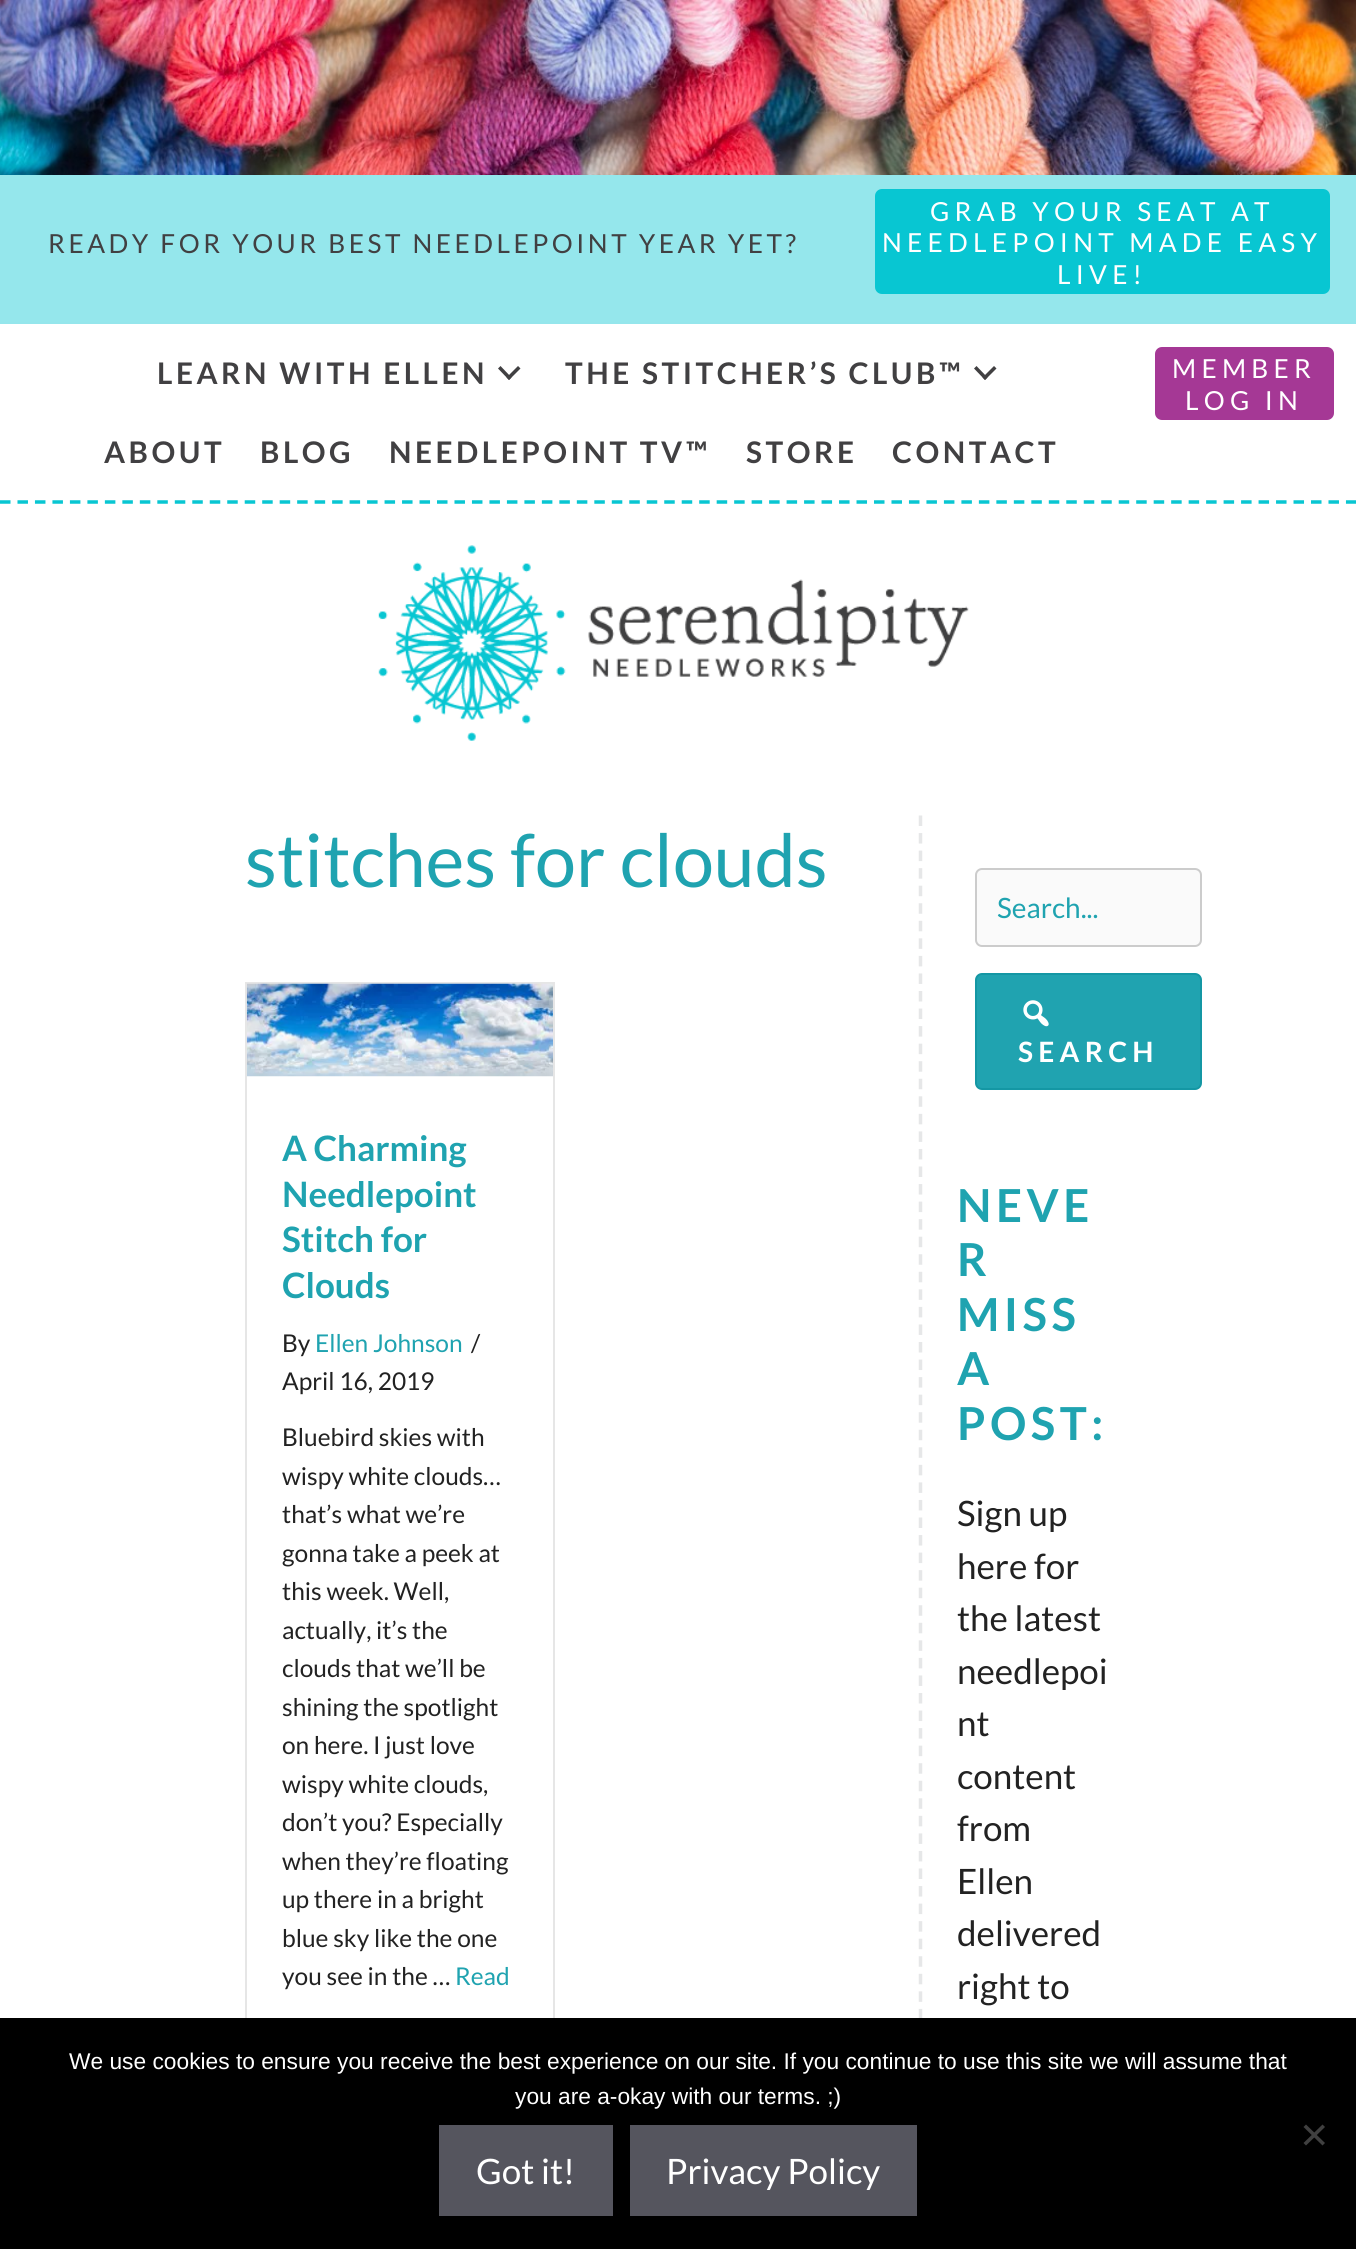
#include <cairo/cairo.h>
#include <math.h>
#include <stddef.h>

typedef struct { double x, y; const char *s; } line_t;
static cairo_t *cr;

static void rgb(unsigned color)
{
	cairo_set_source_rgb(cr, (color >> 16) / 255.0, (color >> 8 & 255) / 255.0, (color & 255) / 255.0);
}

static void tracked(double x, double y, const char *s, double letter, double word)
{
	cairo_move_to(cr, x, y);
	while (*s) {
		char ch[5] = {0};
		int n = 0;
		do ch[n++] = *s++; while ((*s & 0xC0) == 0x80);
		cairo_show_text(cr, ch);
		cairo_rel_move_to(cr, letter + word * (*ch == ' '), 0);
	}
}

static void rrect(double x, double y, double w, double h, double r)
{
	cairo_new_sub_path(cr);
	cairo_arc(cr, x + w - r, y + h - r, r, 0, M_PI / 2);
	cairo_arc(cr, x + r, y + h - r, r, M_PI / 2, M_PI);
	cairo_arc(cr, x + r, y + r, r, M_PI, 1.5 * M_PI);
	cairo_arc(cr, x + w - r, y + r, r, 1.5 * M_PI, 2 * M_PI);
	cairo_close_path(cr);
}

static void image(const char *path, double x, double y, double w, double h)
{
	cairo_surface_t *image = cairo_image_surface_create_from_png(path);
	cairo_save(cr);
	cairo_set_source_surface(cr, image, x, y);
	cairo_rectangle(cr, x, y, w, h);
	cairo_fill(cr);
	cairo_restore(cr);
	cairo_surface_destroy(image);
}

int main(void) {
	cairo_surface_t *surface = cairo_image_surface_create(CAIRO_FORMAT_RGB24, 1356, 2249);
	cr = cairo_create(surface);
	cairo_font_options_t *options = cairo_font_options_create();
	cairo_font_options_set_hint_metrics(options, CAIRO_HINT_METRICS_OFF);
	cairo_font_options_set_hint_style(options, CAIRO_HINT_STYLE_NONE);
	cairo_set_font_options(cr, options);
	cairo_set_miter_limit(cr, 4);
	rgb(0xffffff);
	cairo_paint(cr);
	image("img/1.png", 0, 0, 1356, 175);
	rgb(0x95e7ec);
	cairo_rectangle(cr, 0, 175, 1356, 147);
	cairo_fill(cr);
	rgb(0x08c6d2);
	rrect(875, 189, 455, 105, 7);
	cairo_fill(cr);
	rgb(0x95e6ec);
	cairo_rectangle(cr, 0, 322, 1356, 2);
	cairo_fill(cr);
	cairo_new_path(cr);
	cairo_move_to(cr, 0, 502);
	cairo_line_to(cr, 1356, 502);
	rgb(0x08c6d2);
	cairo_set_line_width(cr, 3.5);
	cairo_set_dash(cr, (double[]){10.5, 6.98}, 2, 0);
	cairo_stroke(cr);
	rgb(0x414042);
	cairo_new_path(cr);
	cairo_move_to(cr, 518, 366);
	cairo_line_to(cr, 520.5, 368.5);
	cairo_line_to(cr, 509, 380);
	cairo_line_to(cr, 506.5, 377.5);
	cairo_close_path(cr);
	cairo_fill(cr);
	cairo_new_path(cr);
	cairo_move_to(cr, 500.5, 366);
	cairo_line_to(cr, 511.5, 377.5);
	cairo_line_to(cr, 509, 380);
	cairo_line_to(cr, 498, 368.5);
	cairo_close_path(cr);
	cairo_fill(cr);
	cairo_new_path(cr);
	cairo_move_to(cr, 994, 366);
	cairo_line_to(cr, 996.5, 368.5);
	cairo_line_to(cr, 985, 380);
	cairo_line_to(cr, 982.5, 377.5);
	cairo_close_path(cr);
	cairo_fill(cr);
	cairo_new_path(cr);
	cairo_move_to(cr, 976.5, 366);
	cairo_line_to(cr, 987.5, 377.5);
	cairo_line_to(cr, 985, 380);
	cairo_line_to(cr, 974, 368.5);
	cairo_close_path(cr);
	cairo_fill(cr);
	rgb(0xa53895);
	rrect(1155, 347, 179, 73, 7);
	cairo_fill(cr);
	image("img/2.png", 378, 545, 591, 196);
	cairo_rectangle(cr, 246, 983, 308, 1142);
	rgb(0xe6e6e6);
	cairo_set_line_width(cr, 2);
	cairo_set_dash(cr, NULL, 0, 0);
	cairo_stroke(cr);
	image("img/3.png", 246, 983, 307, 94);
	cairo_new_path(cr);
	cairo_move_to(cr, 920.5, 815.5);
	cairo_line_to(cr, 920.5, 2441);
	rgb(0xe6e7e8);
	cairo_set_line_width(cr, 3.5);
	cairo_set_dash(cr, (double[]){10.5, 7.05}, 2, 0);
	cairo_stroke(cr);
	rgb(0xfafafa);
	rrect(976, 869, 225, 77, 6);
	cairo_fill_preserve(cr);
	rgb(0xcccccc);
	cairo_set_line_width(cr, 2);
	cairo_set_dash(cr, NULL, 0, 0);
	cairo_stroke(cr);
	rgb(0x20a3b0);
	rrect(976, 974, 225, 115, 6);
	cairo_fill_preserve(cr);
	rgb(0x1497a4);
	cairo_stroke(cr);
	image("img/4.png", 1023, 1000, 26, 27);
	rgb(0x000000);
	cairo_rectangle(cr, 0, 2018, 1356, 231);
	cairo_fill(cr);
	rgb(0x404040);
	cairo_new_path(cr);
	cairo_move_to(cr, 1322.5, 2124.5);
	cairo_line_to(cr, 1325, 2127);
	cairo_line_to(cr, 1306, 2145.5);
	cairo_line_to(cr, 1303.5, 2143);
	cairo_close_path(cr);
	cairo_fill(cr);
	cairo_new_path(cr);
	cairo_move_to(cr, 1303.5, 2127);
	cairo_line_to(cr, 1306, 2124.5);
	cairo_line_to(cr, 1325, 2143);
	cairo_line_to(cr, 1322.5, 2145.5);
	cairo_close_path(cr);
	cairo_fill(cr);
	rgb(0x55555e);
	cairo_rectangle(cr, 439, 2125, 174, 91);
	cairo_fill(cr);
	cairo_rectangle(cr, 630, 2125, 287, 91);
	cairo_fill(cr);
	cairo_select_font_face(cr, "Lato", CAIRO_FONT_SLANT_NORMAL, CAIRO_FONT_WEIGHT_NORMAL);
	cairo_set_font_size(cr, 26.25);
	rgb(0x414042);
	tracked(48, 253, "READY FOR YOUR BEST NEEDLEPOINT YEAR YET?", 3.5, 0);
	rgb(0xffffff);
	{
		static const line_t items[] = {
			{930, 221, "GRAB YOUR SEAT AT"},
			{882, 252, "NEEDLEPOINT MADE EASY"},
			{1057, 284, "LIVE!"},
		};
		for (size_t i = 0; i < sizeof items / sizeof *items; i++) {
			tracked(items[i].x, items[i].y, items[i].s, 5.25, 0);
		}
	}
	cairo_select_font_face(cr, "Lato", CAIRO_FONT_SLANT_NORMAL, CAIRO_FONT_WEIGHT_BOLD);
	cairo_set_font_size(cr, 29.75);
	rgb(0x414042);
	{
		static const line_t items[] = {
			{157, 384, "LEARN WITH ELLEN"},
			{565, 384, "THE STITCHER’S CLUB™"},
			{104, 463, "ABOUT"},
			{260, 463, "BLOG"},
			{389, 463, "NEEDLEPOINT TV™"},
			{746, 463, "STORE"},
			{892, 463, "CONTACT"},
		};
		for (size_t i = 0; i < sizeof items / sizeof *items; i++) {
			tracked(items[i].x, items[i].y, items[i].s, 3.5, 0);
		}
	}
	cairo_select_font_face(cr, "Lato", CAIRO_FONT_SLANT_NORMAL, CAIRO_FONT_WEIGHT_NORMAL);
	cairo_set_font_size(cr, 26.25);
	rgb(0xffffff);
	tracked(1172, 378, "MEMBER", 5.25, 0);
	tracked(1185, 410, "LOG IN", 5.25, 0);
	cairo_set_font_size(cr, 73.5);
	rgb(0x1fa3b0);
	cairo_move_to(cr, 245, 887);
	cairo_show_text(cr, "stitches for clouds");
	cairo_select_font_face(cr, "Lato", CAIRO_FONT_SLANT_NORMAL, CAIRO_FONT_WEIGHT_BOLD);
	cairo_set_font_size(cr, 35);
	{
		static const line_t items[] = {
			{282, 1161, "A Charming"},
			{282, 1207, "Needlepoint"},
			{282, 1252, "Stitch for"},
			{282, 1298, "Clouds"},
		};
		for (size_t i = 0; i < sizeof items / sizeof *items; i++) {
			cairo_move_to(cr, items[i].x, items[i].y);
			cairo_show_text(cr, items[i].s);
		}
	}
	cairo_select_font_face(cr, "Lato", CAIRO_FONT_SLANT_NORMAL, CAIRO_FONT_WEIGHT_NORMAL);
	cairo_set_font_size(cr, 24.5);
	rgb(0x222222);
	cairo_move_to(cr, 282, 1352);
	cairo_show_text(cr, "By");
	rgb(0x1fa3b0);
	cairo_move_to(cr, 315, 1352);
	cairo_show_text(cr, "Ellen Johnson");
	rgb(0x222222);
	{
		static const line_t items[] = {
			{471, 1352, "/"},
			{282, 1390, "April 16, 2019"},
			{282, 1446, "Bluebird skies with"},
			{282, 1485, "wispy white clouds…"},
			{282, 1523, "that’s what we’re"},
			{282, 1562, "gonna take a peek at"},
			{282, 1600, "this week. Well,"},
			{282, 1639, "actually, it’s the"},
			{282, 1677, "clouds that we’ll be"},
			{282, 1716, "shining the spotlight"},
			{282, 1754, "on here. I just love"},
			{282, 1793, "wispy white clouds,"},
			{282, 1831, "don’t you? Especially"},
			{282, 1870, "when they’re floating"},
			{282, 1908, "up there in a bright"},
			{282, 1947, "blue sky like the one"},
			{282, 1985, "you see in the …"},
		};
		for (size_t i = 0; i < sizeof items / sizeof *items; i++) {
			cairo_move_to(cr, items[i].x, items[i].y);
			cairo_show_text(cr, items[i].s);
		}
	}
	rgb(0x1fa3b0);
	cairo_move_to(cr, 455, 1985);
	cairo_show_text(cr, "Read");
	cairo_set_font_size(cr, 28);
	cairo_move_to(cr, 997, 918);
	cairo_show_text(cr, "Search...");
	cairo_select_font_face(cr, "Lato", CAIRO_FONT_SLANT_NORMAL, CAIRO_FONT_WEIGHT_BOLD);
	rgb(0xffffff);
	tracked(1018, 1062, "SEARCH", 5.25, 0);
	cairo_set_font_size(cr, 45.5);
	rgb(0x1fa3b0);
	{
		static const line_t items[] = {
			{957, 1222, "NEVE"},
			{957, 1276, "R"},
			{957, 1331, "MISS"},
			{957, 1385, "A"},
			{957, 1440, "POST:"},
		};
		for (size_t i = 0; i < sizeof items / sizeof *items; i++) {
			tracked(items[i].x, items[i].y, items[i].s, 4.5, 0);
		}
	}
	cairo_select_font_face(cr, "Lato", CAIRO_FONT_SLANT_NORMAL, CAIRO_FONT_WEIGHT_NORMAL);
	cairo_set_font_size(cr, 35);
	rgb(0x222222);
	{
		static const line_t items[] = {
			{957, 1526, "Sign up"},
			{957, 1579, "here for"},
			{957, 1631, "the latest"},
			{957, 1684, "needlepoi"},
			{957, 1736, "nt"},
			{957, 1789, "content"},
			{957, 1841, "from"},
			{957, 1894, "Ellen"},
			{957, 1946, "delivered"},
			{957, 1999, "right to"},
		};
		for (size_t i = 0; i < sizeof items / sizeof *items; i++) {
			cairo_move_to(cr, items[i].x, items[i].y);
			cairo_show_text(cr, items[i].s);
		}
	}
	cairo_select_font_face(cr, "Liberation Sans", CAIRO_FONT_SLANT_NORMAL, CAIRO_FONT_WEIGHT_NORMAL);
	cairo_set_font_size(cr, 22.75);
	rgb(0xffffff);
	cairo_move_to(cr, 69, 2069);
	cairo_show_text(cr, "We use cookies to ensure you receive the best experience on our site. If you continue to use this site we will assume that");
	cairo_move_to(cr, 515, 2104);
	cairo_show_text(cr, "you are a-okay with our terms. ;)");
	cairo_select_font_face(cr, "Lato", CAIRO_FONT_SLANT_NORMAL, CAIRO_FONT_WEIGHT_NORMAL);
	cairo_set_font_size(cr, 35);
	cairo_move_to(cr, 476, 2184);
	cairo_show_text(cr, "Got it!");
	cairo_move_to(cr, 666, 2184);
	cairo_show_text(cr, "Privacy Policy");
	cairo_surface_write_to_png(surface, "page.png");
	cairo_font_options_destroy(options);
	cairo_destroy(cr);
	cairo_surface_destroy(surface);
	return 0;
}
